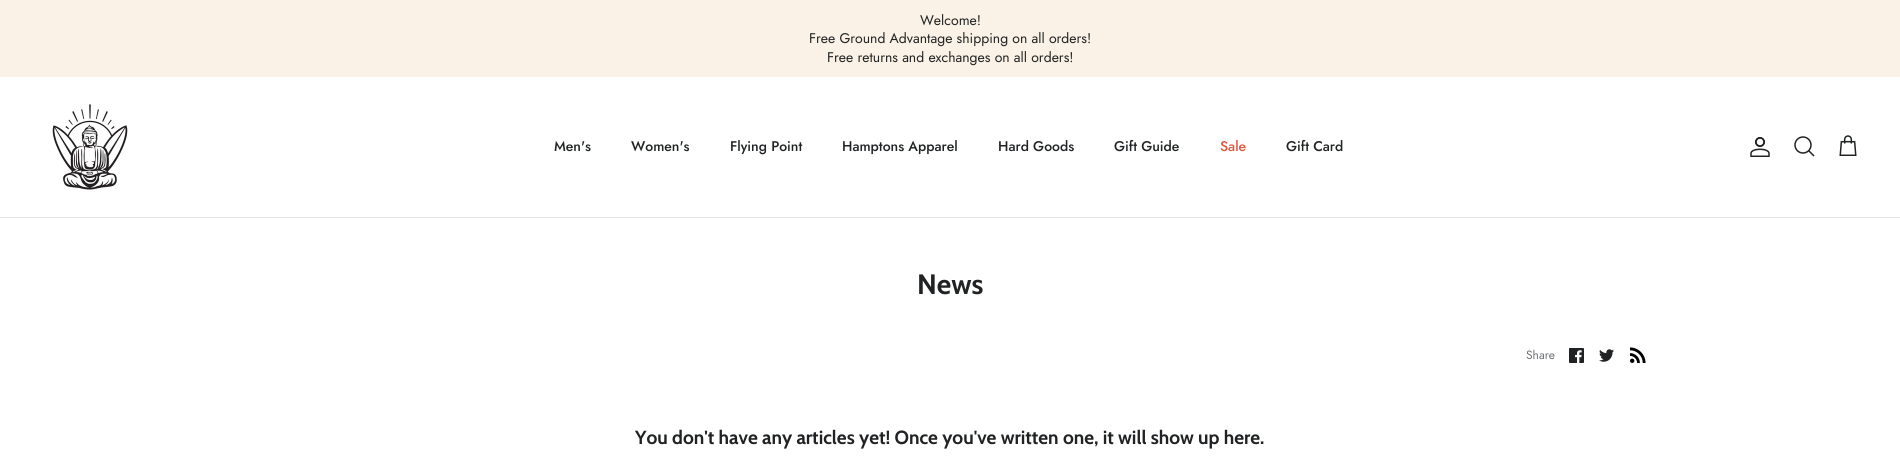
#include <cairo/cairo.h>
#include <math.h>
#include <stddef.h>

typedef struct { double x, y; const char *s; } line_t;
static cairo_t *cr;

static void rgb(unsigned color)
{
	cairo_set_source_rgb(cr, (color >> 16) / 255.0, (color >> 8 & 255) / 255.0, (color & 255) / 255.0);
}

static void image(const char *path, double x, double y, double w, double h)
{
	cairo_surface_t *image = cairo_image_surface_create_from_png(path);
	cairo_save(cr);
	cairo_set_source_surface(cr, image, x, y);
	cairo_rectangle(cr, x, y, w, h);
	cairo_fill(cr);
	cairo_restore(cr);
	cairo_surface_destroy(image);
}

int main(void) {
	cairo_surface_t *surface = cairo_image_surface_create(CAIRO_FORMAT_RGB24, 1900, 456);
	cr = cairo_create(surface);
	cairo_font_options_t *options = cairo_font_options_create();
	cairo_font_options_set_hint_metrics(options, CAIRO_HINT_METRICS_OFF);
	cairo_font_options_set_hint_style(options, CAIRO_HINT_STYLE_NONE);
	cairo_set_font_options(cr, options);
	cairo_set_miter_limit(cr, 4);
	rgb(0xffffff);
	cairo_paint(cr);
	rgb(0xfaf2e6);
	cairo_rectangle(cr, 0, 0, 1900, 77);
	cairo_fill(cr);
	rgb(0xe2e2e2);
	cairo_rectangle(cr, 0, 217, 1900, 1);
	cairo_fill(cr);
	image("img/1.png", 52, 104, 76, 86);
	image("img/2.png", 1750, 137, 20, 20);
	cairo_arc(cr, 1803, 145, 8, 0, 2 * M_PI);
	rgb(0x202223);
	cairo_set_line_width(cr, 1.5);
	cairo_stroke(cr);
	cairo_new_path(cr);
	cairo_move_to(cr, 1809, 151);
	cairo_line_to(cr, 1813.5, 155.5);
	cairo_set_line_cap(cr, CAIRO_LINE_CAP_SQUARE);
	cairo_stroke(cr);
	image("img/3.png", 1839, 135, 18, 21);
	image("img/4.png", 1569, 348, 15, 15);
	image("img/5.png", 1599, 349, 15, 13);
	image("img/6.png", 1630, 347, 16, 16);
	cairo_select_font_face(cr, "Jost", CAIRO_FONT_SLANT_NORMAL, CAIRO_FONT_WEIGHT_NORMAL);
	cairo_set_font_size(cr, 14);
	{
		static const line_t items[] = {
			{920, 25, "Welcome!"},
			{809, 43, "Free Ground Advantage shipping on all orders!"},
			{827, 62, "Free returns and exchanges on all orders!"},
		};
		for (size_t i = 0; i < sizeof items / sizeof *items; i++) {
			cairo_move_to(cr, items[i].x, items[i].y);
			cairo_show_text(cr, items[i].s);
		}
	}
	cairo_select_font_face(cr, "Jost Medium", CAIRO_FONT_SLANT_NORMAL, CAIRO_FONT_WEIGHT_NORMAL);
	{
		static const line_t items[] = {
			{554, 151, "Men's"},
			{631, 151, "Women's"},
			{730, 151, "Flying Point"},
			{842, 151, "Hamptons Apparel"},
			{998, 151, "Hard Goods"},
			{1114, 151, "Gift Guide"},
		};
		for (size_t i = 0; i < sizeof items / sizeof *items; i++) {
			cairo_move_to(cr, items[i].x, items[i].y);
			cairo_show_text(cr, items[i].s);
		}
	}
	rgb(0xdf5641);
	cairo_move_to(cr, 1220, 151);
	cairo_show_text(cr, "Sale");
	rgb(0x202223);
	cairo_move_to(cr, 1286, 151);
	cairo_show_text(cr, "Gift Card");
	cairo_select_font_face(cr, "Cabin", CAIRO_FONT_SLANT_NORMAL, CAIRO_FONT_WEIGHT_BOLD);
	cairo_set_font_size(cr, 28);
	cairo_move_to(cr, 917, 294);
	cairo_show_text(cr, "News");
	cairo_select_font_face(cr, "Jost", CAIRO_FONT_SLANT_NORMAL, CAIRO_FONT_WEIGHT_NORMAL);
	cairo_set_font_size(cr, 12);
	rgb(0x6d7175);
	cairo_move_to(cr, 1526, 359);
	cairo_show_text(cr, "Share");
	cairo_select_font_face(cr, "Cabin", CAIRO_FONT_SLANT_NORMAL, CAIRO_FONT_WEIGHT_BOLD);
	cairo_set_font_size(cr, 19);
	rgb(0x202223);
	cairo_move_to(cr, 635, 444);
	cairo_show_text(cr, "You don't have any articles yet! Once you've written one, it will show up here.");
	cairo_surface_write_to_png(surface, "page.png");
	cairo_font_options_destroy(options);
	cairo_destroy(cr);
	cairo_surface_destroy(surface);
	return 0;
}
